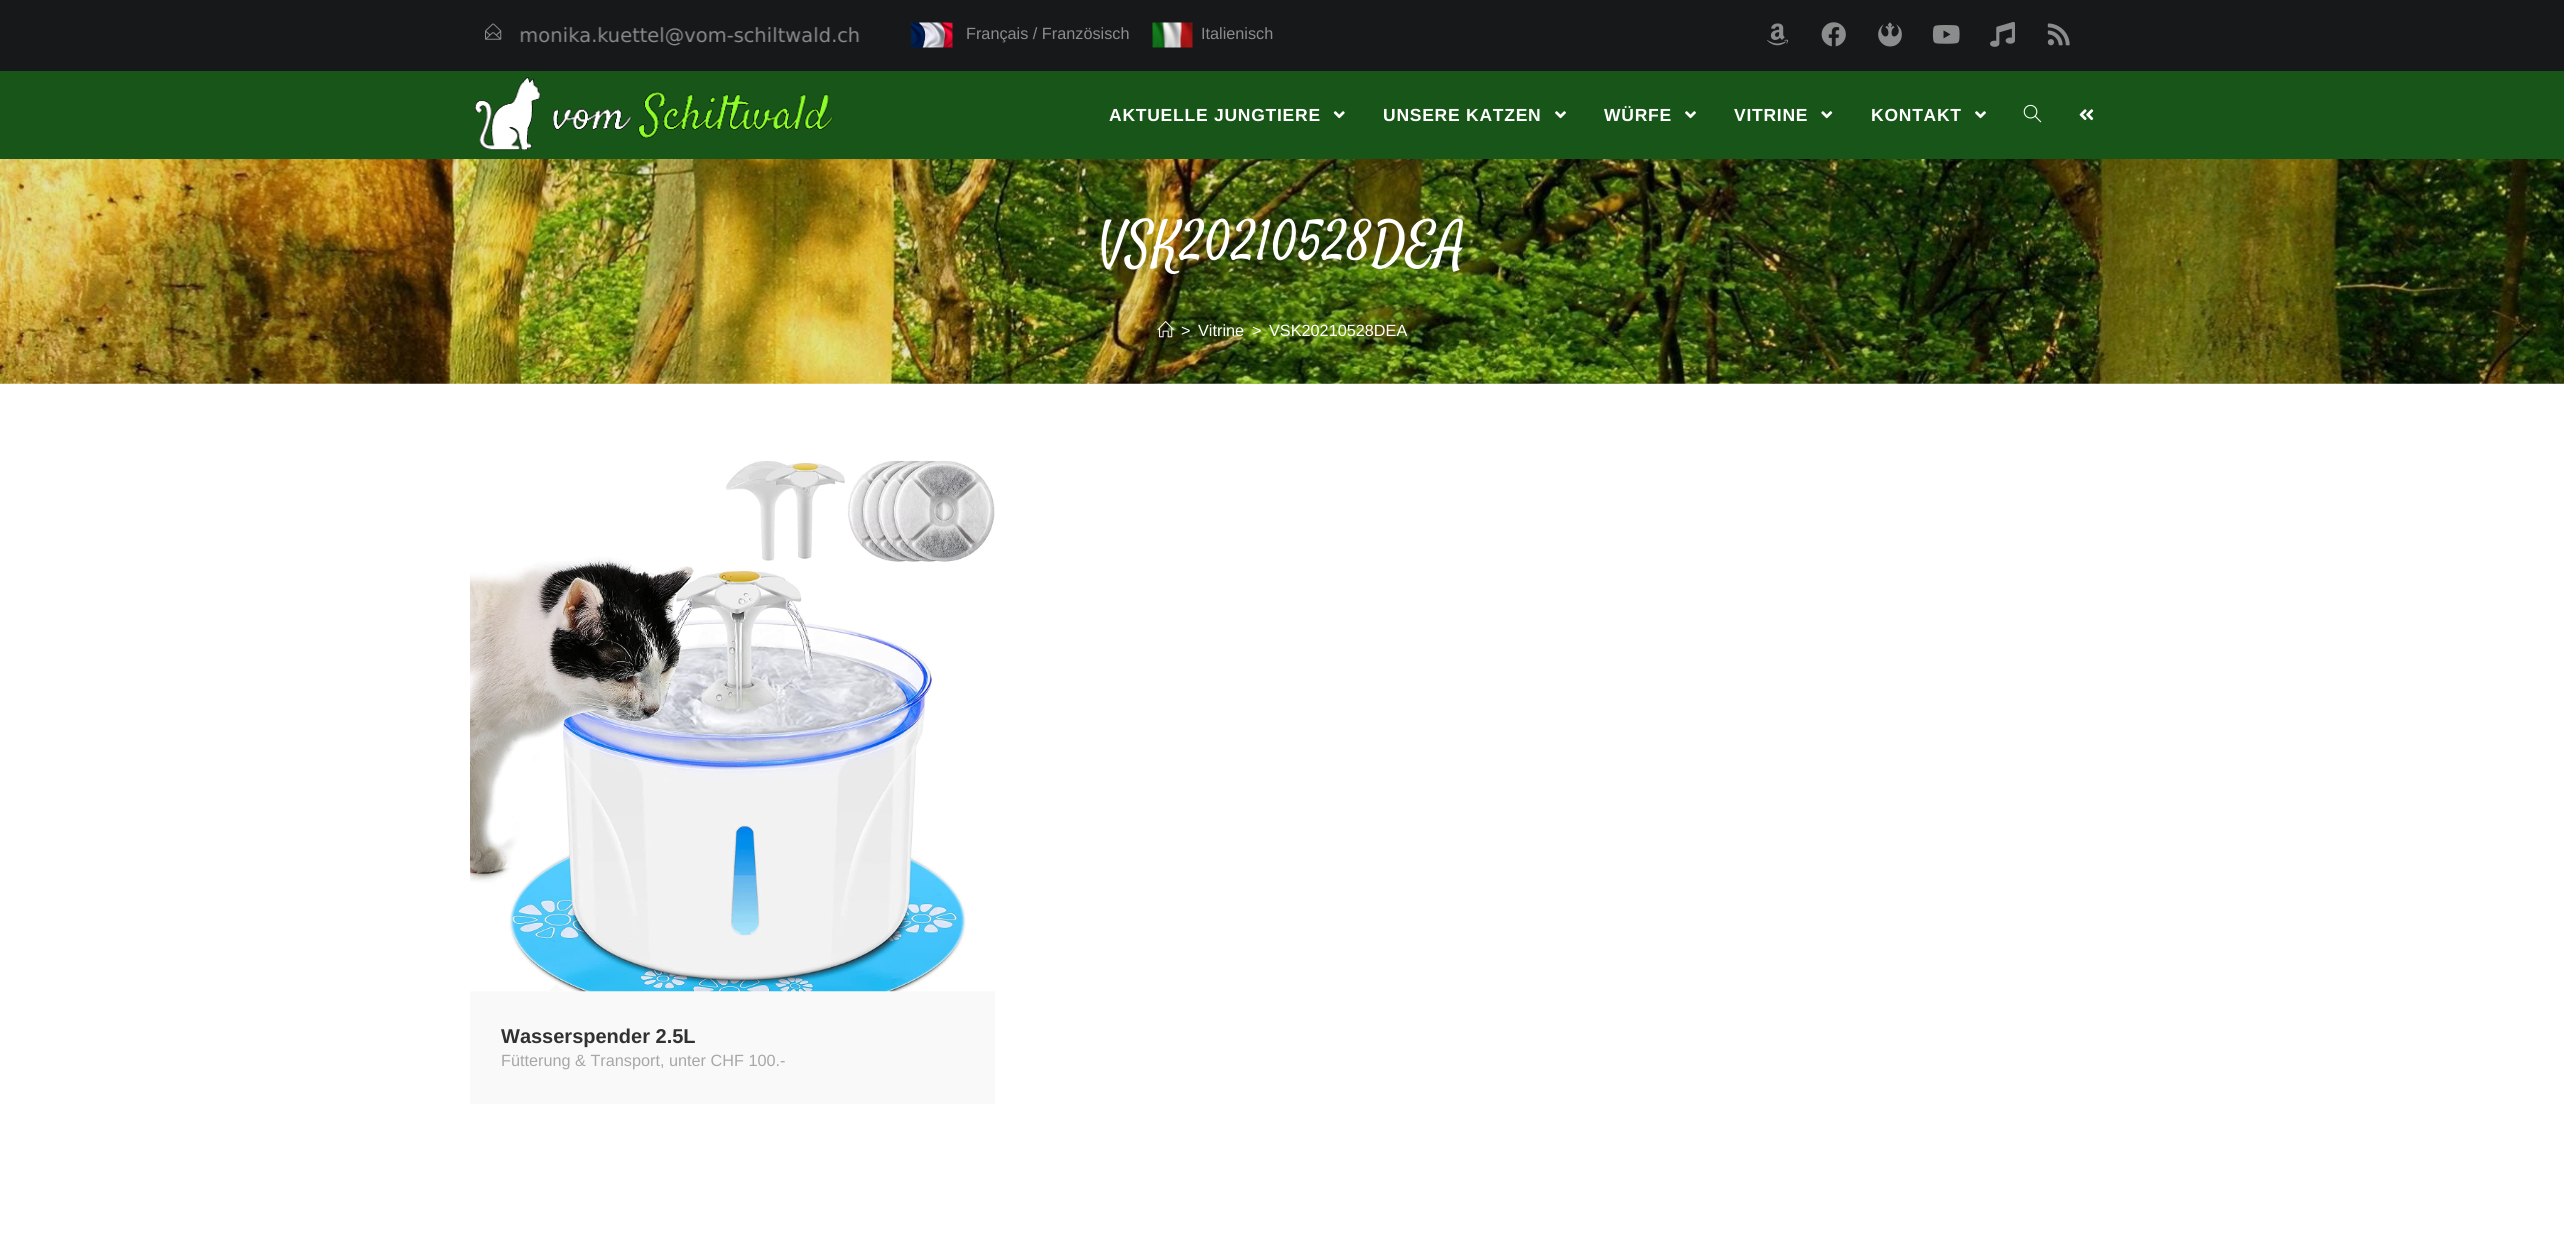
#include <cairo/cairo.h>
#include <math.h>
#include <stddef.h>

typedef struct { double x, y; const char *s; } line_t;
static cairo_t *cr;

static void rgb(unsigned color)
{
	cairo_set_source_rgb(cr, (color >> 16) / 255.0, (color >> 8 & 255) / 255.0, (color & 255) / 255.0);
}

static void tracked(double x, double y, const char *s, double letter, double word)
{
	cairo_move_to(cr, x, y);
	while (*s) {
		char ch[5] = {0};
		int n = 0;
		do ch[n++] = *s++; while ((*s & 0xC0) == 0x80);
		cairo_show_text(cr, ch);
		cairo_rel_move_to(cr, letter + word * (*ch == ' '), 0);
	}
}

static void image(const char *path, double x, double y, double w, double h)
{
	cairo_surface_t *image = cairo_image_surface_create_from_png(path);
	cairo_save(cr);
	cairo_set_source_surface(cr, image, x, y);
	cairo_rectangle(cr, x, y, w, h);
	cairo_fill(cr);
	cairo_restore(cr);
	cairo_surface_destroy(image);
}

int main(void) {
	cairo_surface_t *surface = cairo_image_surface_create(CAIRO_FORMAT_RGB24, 2564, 1253);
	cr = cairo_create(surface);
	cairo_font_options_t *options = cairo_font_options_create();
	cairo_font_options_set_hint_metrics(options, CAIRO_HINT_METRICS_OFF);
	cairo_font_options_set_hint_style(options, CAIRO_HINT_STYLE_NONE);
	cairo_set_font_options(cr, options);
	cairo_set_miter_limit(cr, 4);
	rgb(0xffffff);
	cairo_paint(cr);
	rgb(0x161819);
	cairo_rectangle(cr, 0, 0, 2564, 71);
	cairo_fill(cr);
	image("img/1.png", 485, 23, 17, 17);
	image("img/2.png", 520, 27, 340, 19);
	image("img/3.png", 911, 22, 42, 26);
	image("img/4.png", 1152, 22, 41, 26);
	image("img/5.png", 1767, 23, 22, 23);
	image("img/6.png", 1821, 22, 25, 25);
	image("img/7.png", 1878, 22, 24, 25);
	image("img/8.png", 1932, 25, 28, 19);
	image("img/9.png", 1990, 21, 25, 26);
	image("img/10.png", 2047, 23, 23, 23);
	rgb(0x175618);
	cairo_rectangle(cr, 0, 71, 2564, 88);
	cairo_fill(cr);
	image("img/11.png", 474, 77, 360, 74);
	image("img/12.png", 1333, 111, 12, 8);
	image("img/13.png", 1555, 111, 11, 8);
	image("img/13.png", 1685, 111, 11, 8);
	image("img/14.png", 1821, 111, 12, 8);
	image("img/13.png", 1975, 111, 11, 8);
	image("img/15.png", 2023, 104, 19, 19);
	image("img/16.png", 2079, 109, 15, 12);
	image("img/17.png", 0, 159, 2564, 225);
	image("img/18.png", 1157, 321, 17, 17);
	rgb(0xf9f9f9);
	cairo_rectangle(cr, 470, 991, 525, 113);
	cairo_fill(cr);
	image("img/19.png", 470, 460, 525, 532);
	cairo_new_path(cr);
	cairo_move_to(cr, 564, 991);
	cairo_line_to(cr, 549, 991);
	cairo_line_to(cr, 556, 984);
	cairo_close_path(cr);
	cairo_fill(cr);
	cairo_select_font_face(cr, "Liberation Sans", CAIRO_FONT_SLANT_NORMAL, CAIRO_FONT_WEIGHT_NORMAL);
	cairo_set_font_size(cr, 16.25);
	rgb(0x8b8c8c);
	cairo_move_to(cr, 966, 39);
	cairo_show_text(cr, "Français / Französisch");
	cairo_move_to(cr, 1201, 39);
	cairo_show_text(cr, "Italienisch");
	cairo_select_font_face(cr, "Liberation Sans", CAIRO_FONT_SLANT_NORMAL, CAIRO_FONT_WEIGHT_BOLD);
	cairo_set_font_size(cr, 17.5);
	rgb(0xffffff);
	{
		static const line_t items[] = {
			{1109, 121, "AKTUELLE JUNGTIERE"},
			{1383, 121, "UNSERE KATZEN"},
			{1604, 121, "WÜRFE"},
			{1734, 121, "VITRINE"},
			{1871, 121, "KONTAKT"},
		};
		for (size_t i = 0; i < sizeof items / sizeof *items; i++) {
			tracked(items[i].x, items[i].y, items[i].s, 0.75, 0);
		}
	}
	cairo_select_font_face(cr, "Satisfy", CAIRO_FONT_SLANT_NORMAL, CAIRO_FONT_WEIGHT_NORMAL);
	cairo_set_font_size(cr, 55);
	cairo_move_to(cr, 1099, 259);
	cairo_show_text(cr, "VSK20210528DEA");
	cairo_select_font_face(cr, "Liberation Sans", CAIRO_FONT_SLANT_NORMAL, CAIRO_FONT_WEIGHT_NORMAL);
	cairo_set_font_size(cr, 16.25);
	{
		static const line_t items[] = {
			{1181, 336, ">"},
			{1198, 336, "Vitrine"},
			{1252, 336, ">"},
			{1269, 336, "VSK20210528DEA"},
		};
		for (size_t i = 0; i < sizeof items / sizeof *items; i++) {
			cairo_move_to(cr, items[i].x, items[i].y);
			cairo_show_text(cr, items[i].s);
		}
	}
	cairo_select_font_face(cr, "Liberation Sans", CAIRO_FONT_SLANT_NORMAL, CAIRO_FONT_WEIGHT_BOLD);
	cairo_set_font_size(cr, 20);
	rgb(0x313131);
	cairo_move_to(cr, 501, 1043);
	cairo_show_text(cr, "Wasserspender 2.5L");
	cairo_select_font_face(cr, "Liberation Sans", CAIRO_FONT_SLANT_NORMAL, CAIRO_FONT_WEIGHT_NORMAL);
	cairo_set_font_size(cr, 16.25);
	rgb(0xa7a7a7);
	cairo_move_to(cr, 501, 1066);
	cairo_show_text(cr, "Fütterung & Transport, unter CHF 100.-");
	cairo_surface_write_to_png(surface, "page.png");
	cairo_font_options_destroy(options);
	cairo_destroy(cr);
	cairo_surface_destroy(surface);
	return 0;
}
